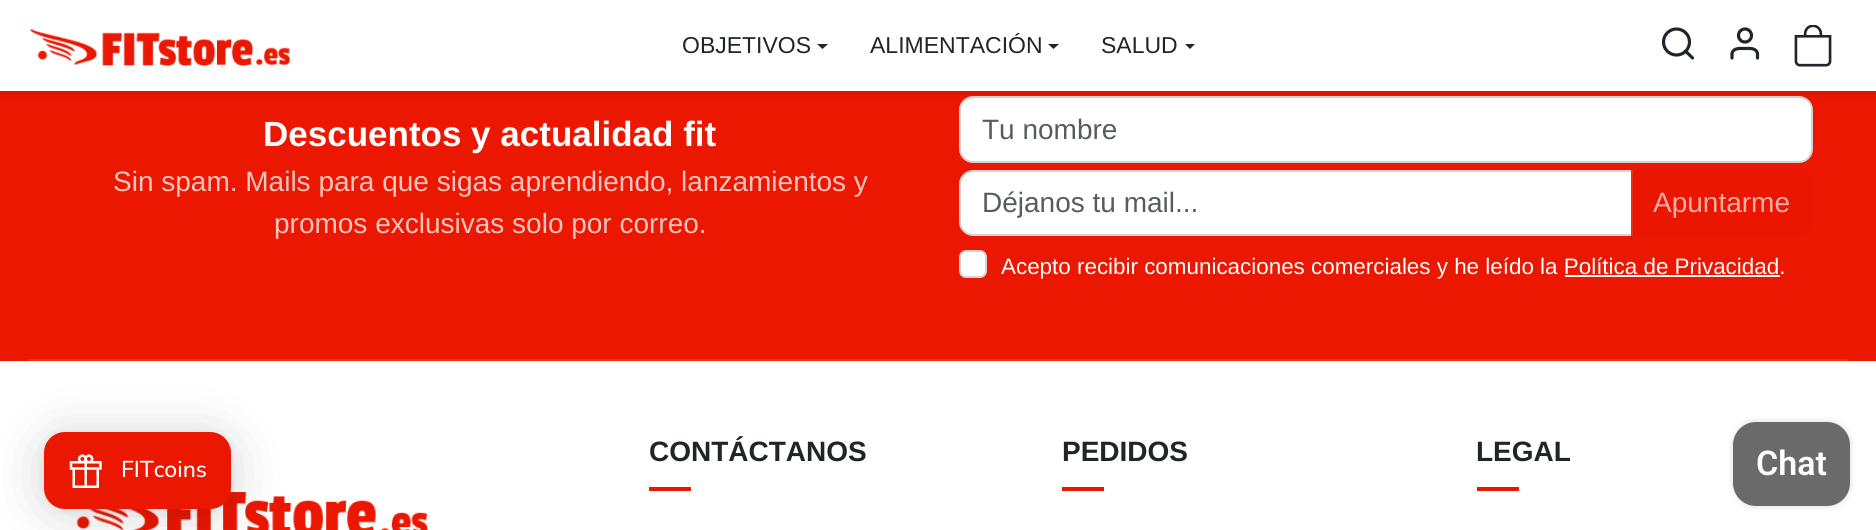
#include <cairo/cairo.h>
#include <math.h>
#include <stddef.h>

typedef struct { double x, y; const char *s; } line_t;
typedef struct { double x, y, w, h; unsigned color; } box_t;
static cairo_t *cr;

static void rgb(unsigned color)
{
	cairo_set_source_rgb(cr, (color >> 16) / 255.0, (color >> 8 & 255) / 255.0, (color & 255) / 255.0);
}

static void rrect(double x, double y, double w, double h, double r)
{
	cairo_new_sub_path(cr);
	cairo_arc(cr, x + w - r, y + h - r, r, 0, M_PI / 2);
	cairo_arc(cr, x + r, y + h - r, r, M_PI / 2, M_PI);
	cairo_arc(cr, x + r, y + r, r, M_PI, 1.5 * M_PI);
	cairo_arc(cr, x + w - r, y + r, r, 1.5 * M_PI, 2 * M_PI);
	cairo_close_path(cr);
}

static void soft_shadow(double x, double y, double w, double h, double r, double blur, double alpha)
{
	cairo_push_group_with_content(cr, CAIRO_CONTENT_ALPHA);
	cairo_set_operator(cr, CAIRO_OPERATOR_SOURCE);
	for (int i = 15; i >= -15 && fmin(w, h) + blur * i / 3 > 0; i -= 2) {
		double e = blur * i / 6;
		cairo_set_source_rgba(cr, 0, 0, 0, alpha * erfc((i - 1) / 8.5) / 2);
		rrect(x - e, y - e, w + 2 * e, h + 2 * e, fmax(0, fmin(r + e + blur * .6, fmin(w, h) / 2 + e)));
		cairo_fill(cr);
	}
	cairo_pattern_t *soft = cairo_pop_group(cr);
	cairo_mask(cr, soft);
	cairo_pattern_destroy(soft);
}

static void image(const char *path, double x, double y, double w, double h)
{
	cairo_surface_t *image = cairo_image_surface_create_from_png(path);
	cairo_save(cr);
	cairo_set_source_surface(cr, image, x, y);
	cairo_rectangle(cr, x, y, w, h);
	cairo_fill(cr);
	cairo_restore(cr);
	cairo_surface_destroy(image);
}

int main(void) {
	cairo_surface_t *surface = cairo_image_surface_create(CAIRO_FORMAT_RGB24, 1876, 530);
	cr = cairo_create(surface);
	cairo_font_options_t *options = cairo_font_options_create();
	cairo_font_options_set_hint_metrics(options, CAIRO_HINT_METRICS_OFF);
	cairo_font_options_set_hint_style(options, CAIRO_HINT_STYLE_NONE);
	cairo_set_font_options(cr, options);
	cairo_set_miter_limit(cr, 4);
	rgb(0xffffff);
	cairo_paint(cr);
	rgb(0xeb1700);
	cairo_rectangle(cr, 0, 91, 1876, 270);
	cairo_fill(cr);
	rgb(0xffffff);
	rrect(960, 97, 852, 65, 13);
	cairo_fill_preserve(cr);
	rgb(0xd3d3d3);
	cairo_stroke(cr);
	rgb(0x200404);
	soft_shadow(0, 4, 1876, 91, 0, 3.5, 0.07);
	rgb(0xffffff);
	cairo_rectangle(cr, 0, 0, 1876, 91);
	cairo_fill(cr);
	image("img/1.png", 30, 29, 261, 37);
	rgb(0x212529);
	cairo_new_path(cr);
	cairo_move_to(cr, 817, 44);
	cairo_line_to(cr, 828, 44);
	cairo_line_to(cr, 822.5, 49);
	cairo_close_path(cr);
	cairo_fill(cr);
	cairo_new_path(cr);
	cairo_move_to(cr, 1048, 44);
	cairo_line_to(cr, 1059, 44);
	cairo_line_to(cr, 1053.5, 49);
	cairo_close_path(cr);
	cairo_fill(cr);
	cairo_new_path(cr);
	cairo_move_to(cr, 1185, 44);
	cairo_line_to(cr, 1195, 44);
	cairo_line_to(cr, 1190, 49);
	cairo_close_path(cr);
	cairo_fill(cr);
	cairo_arc(cr, 1676.5, 42, 13, 0, 2 * M_PI);
	cairo_set_line_width(cr, 3.2);
	cairo_stroke(cr);
	cairo_new_path(cr);
	cairo_move_to(cr, 1692.5, 58);
	cairo_line_to(cr, 1685.5, 51);
	cairo_set_line_cap(cr, CAIRO_LINE_CAP_ROUND);
	cairo_set_line_join(cr, CAIRO_LINE_JOIN_ROUND);
	cairo_stroke(cr);
	cairo_new_path(cr);
	cairo_move_to(cr, 1757.5, 58);
	cairo_line_to(cr, 1757.5, 53.5);
	cairo_curve_to(cr, 1756, 47.5, 1749.5, 48.5, 1745, 48.5);
	cairo_curve_to(cr, 1740, 48.5, 1733.5, 47.5, 1732, 53.5);
	cairo_line_to(cr, 1732, 58);
	cairo_stroke(cr);
	cairo_arc(cr, 1745, 35.5, 6.5, 0, 2 * M_PI);
	cairo_set_line_cap(cr, CAIRO_LINE_CAP_BUTT);
	cairo_set_line_join(cr, CAIRO_LINE_JOIN_MITER);
	cairo_stroke(cr);
	image("img/2.png", 1794, 25, 38, 42);
	rgb(0xed2e1a);
	cairo_rectangle(cr, 28, 359, 1820, 2);
	cairo_fill(cr);
	rgb(0xffffff);
	cairo_new_path(cr);
	cairo_move_to(cr, 973, 171);
	cairo_line_to(cr, 1632, 171);
	cairo_line_to(cr, 1632, 235);
	cairo_line_to(cr, 973, 235);
	cairo_curve_to(cr, 966, 235, 960, 229, 960, 222);
	cairo_line_to(cr, 960, 184);
	cairo_curve_to(cr, 960, 177, 966, 171, 973, 171);
	cairo_close_path(cr);
	cairo_fill_preserve(cr);
	rgb(0xd3d3d3);
	cairo_set_line_width(cr, 2);
	cairo_stroke(cr);
	cairo_set_source_rgba(cr, 0.922, 0.09, 0, 0.65);
	cairo_new_path(cr);
	cairo_move_to(cr, 1631, 170);
	cairo_line_to(cr, 1799, 170);
	cairo_curve_to(cr, 1806.5, 170, 1813, 176.5, 1813, 184);
	cairo_line_to(cr, 1813, 222);
	cairo_curve_to(cr, 1813, 229.5, 1806.5, 236, 1799, 236);
	cairo_line_to(cr, 1631, 236);
	cairo_close_path(cr);
	cairo_fill(cr);
	cairo_new_path(cr);
	cairo_move_to(cr, 1632, 171);
	cairo_line_to(cr, 1799, 171);
	cairo_curve_to(cr, 1806, 171, 1812, 177, 1812, 184);
	cairo_line_to(cr, 1812, 222);
	cairo_curve_to(cr, 1812, 229, 1806, 235, 1799, 235);
	cairo_line_to(cr, 1632, 235);
	cairo_close_path(cr);
	cairo_stroke(cr);
	rgb(0xffffff);
	rrect(960, 251, 26, 26, 6);
	cairo_fill_preserve(cr);
	rgb(0xd3d3d3);
	cairo_stroke(cr);
	rgb(0xffffff);
	cairo_rectangle(cr, 1565, 275, 215, 2);
	cairo_fill(cr);
	image("img/4.png", 76, 492, 353, 38);
	rgb(0x000000);
	soft_shadow(44, 436, 187, 77, 21, 28, 0.16);
	soft_shadow(44, 434, 187, 77, 21, 5, 0.06);
	rgb(0xeb1700);
	rrect(44, 432, 187, 77, 21);
	cairo_fill(cr);
	image("img/3.png", 69, 454, 33, 34);
	{
		static const box_t items[] = {
			{649, 487, 42, 4, 0xeb1700},
			{1062, 487, 42, 4, 0xeb1700},
			{1477, 487, 42, 4, 0xeb1700},
		};
		for (size_t i = 0; i < sizeof items / sizeof *items; i++) {
			rgb(items[i].color);
			cairo_rectangle(cr, items[i].x, items[i].y, items[i].w, items[i].h);
			cairo_fill(cr);
		}
	}
	rgb(0x000000);
	soft_shadow(1733, 422, 117, 84, 23, 3.5, 0.15);
	rgb(0x6a6a6a);
	rrect(1733, 422, 117, 84, 23);
	cairo_fill(cr);
	cairo_select_font_face(cr, "Liberation Sans", CAIRO_FONT_SLANT_NORMAL, CAIRO_FONT_WEIGHT_NORMAL);
	cairo_set_font_size(cr, 23);
	rgb(0x212529);
	{
		static const line_t items[] = {
			{682, 53, "OBJETIVOS"},
			{870, 53, "ALIMENTACIÓN"},
			{1101, 53, "SALUD"},
		};
		for (size_t i = 0; i < sizeof items / sizeof *items; i++) {
			cairo_move_to(cr, items[i].x, items[i].y);
			cairo_show_text(cr, items[i].s);
		}
	}
	cairo_select_font_face(cr, "Liberation Sans", CAIRO_FONT_SLANT_NORMAL, CAIRO_FONT_WEIGHT_BOLD);
	cairo_set_font_size(cr, 35);
	rgb(0xffffff);
	cairo_move_to(cr, 263, 146);
	cairo_show_text(cr, "Descuentos y actualidad fit");
	cairo_select_font_face(cr, "Liberation Sans", CAIRO_FONT_SLANT_NORMAL, CAIRO_FONT_WEIGHT_NORMAL);
	cairo_set_font_size(cr, 28);
	rgb(0xfac5bf);
	cairo_move_to(cr, 113, 191);
	cairo_show_text(cr, "Sin spam. Mails para que sigas aprendiendo, lanzamientos y");
	cairo_move_to(cr, 274, 233);
	cairo_show_text(cr, "promos exclusivas solo por correo.");
	rgb(0x595c5f);
	cairo_move_to(cr, 982, 139);
	cairo_show_text(cr, "Tu nombre");
	cairo_move_to(cr, 982, 212);
	cairo_show_text(cr, "Déjanos tu mail...");
	rgb(0xf8aea6);
	cairo_move_to(cr, 1653, 212);
	cairo_show_text(cr, "Apuntarme");
	cairo_set_font_size(cr, 22.4);
	rgb(0xffffff);
	cairo_move_to(cr, 1001, 274);
	cairo_show_text(cr, "Acepto recibir comunicaciones comerciales y he leído la Política de Privacidad.");
	cairo_select_font_face(cr, "Nunito Medium", CAIRO_FONT_SLANT_NORMAL, CAIRO_FONT_WEIGHT_NORMAL);
	cairo_set_font_size(cr, 23);
	cairo_move_to(cr, 121, 477);
	cairo_show_text(cr, "FITcoins");
	cairo_select_font_face(cr, "Liberation Sans", CAIRO_FONT_SLANT_NORMAL, CAIRO_FONT_WEIGHT_BOLD);
	cairo_set_font_size(cr, 28);
	rgb(0x212529);
	{
		static const line_t items[] = {
			{649, 461, "CONTÁCTANOS"},
			{1062, 461, "PEDIDOS"},
			{1476, 461, "LEGAL"},
		};
		for (size_t i = 0; i < sizeof items / sizeof *items; i++) {
			cairo_move_to(cr, items[i].x, items[i].y);
			cairo_show_text(cr, items[i].s);
		}
	}
	cairo_select_font_face(cr, "Roboto SemiBold", CAIRO_FONT_SLANT_NORMAL, CAIRO_FONT_WEIGHT_NORMAL);
	cairo_set_font_size(cr, 34);
	rgb(0xffffff);
	cairo_move_to(cr, 1756, 475);
	cairo_show_text(cr, "Chat");
	cairo_surface_write_to_png(surface, "page.png");
	cairo_font_options_destroy(options);
	cairo_destroy(cr);
	cairo_surface_destroy(surface);
	return 0;
}
